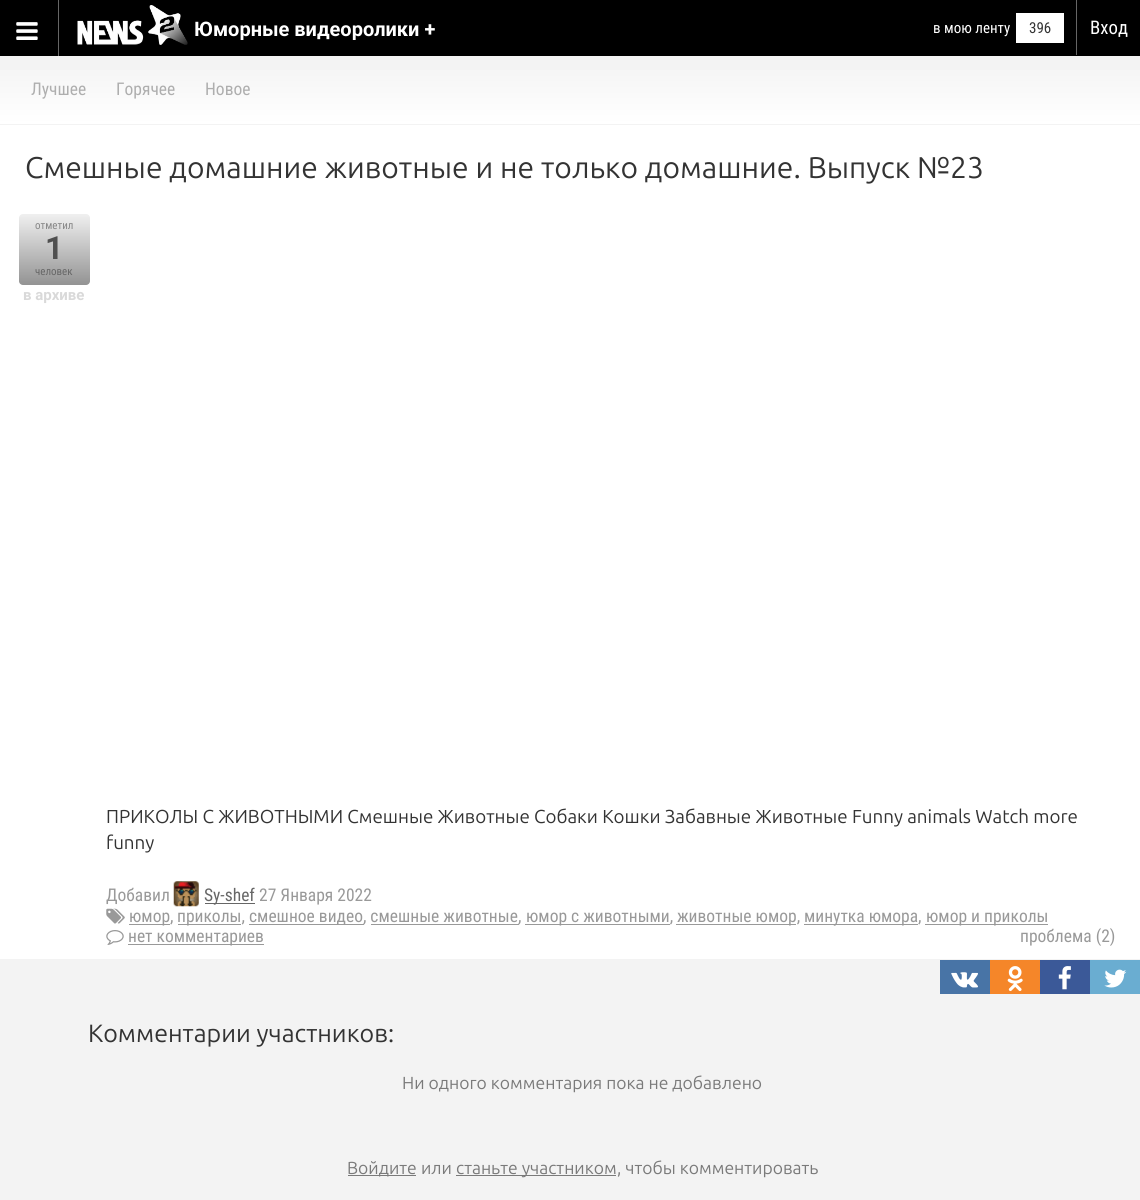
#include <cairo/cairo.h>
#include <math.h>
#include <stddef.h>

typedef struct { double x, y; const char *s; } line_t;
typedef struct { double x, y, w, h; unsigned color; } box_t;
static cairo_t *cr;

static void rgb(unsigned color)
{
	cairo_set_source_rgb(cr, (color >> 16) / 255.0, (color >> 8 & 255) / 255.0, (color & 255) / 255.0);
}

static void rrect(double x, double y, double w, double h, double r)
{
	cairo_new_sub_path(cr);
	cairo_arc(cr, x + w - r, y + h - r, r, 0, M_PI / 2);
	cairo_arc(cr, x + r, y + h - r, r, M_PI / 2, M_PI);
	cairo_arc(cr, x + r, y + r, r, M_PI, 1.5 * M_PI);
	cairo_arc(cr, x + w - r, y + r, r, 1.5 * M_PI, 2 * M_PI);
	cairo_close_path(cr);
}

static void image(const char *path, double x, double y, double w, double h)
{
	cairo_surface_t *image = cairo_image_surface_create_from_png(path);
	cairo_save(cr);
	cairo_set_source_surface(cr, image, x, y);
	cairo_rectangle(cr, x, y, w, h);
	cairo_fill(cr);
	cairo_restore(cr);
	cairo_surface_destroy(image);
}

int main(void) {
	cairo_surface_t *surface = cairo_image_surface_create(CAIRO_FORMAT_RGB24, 1140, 1200);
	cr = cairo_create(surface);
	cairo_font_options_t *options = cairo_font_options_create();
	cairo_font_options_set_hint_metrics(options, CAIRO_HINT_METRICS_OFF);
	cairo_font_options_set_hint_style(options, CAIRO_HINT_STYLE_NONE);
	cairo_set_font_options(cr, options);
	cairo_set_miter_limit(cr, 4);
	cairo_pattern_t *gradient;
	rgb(0xf3f3f3);
	cairo_paint(cr);
	rgb(0x000000);
	cairo_rectangle(cr, 0, 0, 1140, 56);
	cairo_fill(cr);
	rgb(0x666666);
	cairo_rectangle(cr, 58, 0, 1, 56);
	cairo_fill(cr);
	image("img/1.png", 16, 22, 22, 18);
	image("img/2.png", 77, 5, 111, 40);
	rgb(0xffffff);
	cairo_rectangle(cr, 1016, 13, 48, 30);
	cairo_fill(cr);
	rgb(0x666666);
	cairo_rectangle(cr, 1076, 0, 1, 55);
	cairo_fill(cr);
	gradient = cairo_pattern_create_linear(570, 56, 570, 124);
	cairo_pattern_add_color_stop_rgba(gradient, 0, 0.953, 0.953, 0.953, 1);
	cairo_pattern_add_color_stop_rgba(gradient, 1, 1, 1, 1, 1);
	cairo_set_source(cr, gradient);
	cairo_pattern_destroy(gradient);
	cairo_rectangle(cr, 0, 70, 1140, 54);
	cairo_fill(cr);
	rgb(0xffffff);
	cairo_rectangle(cr, 0, 125, 1140, 834);
	cairo_fill(cr);
	gradient = cairo_pattern_create_linear(54, 214, 54, 285);
	cairo_pattern_add_color_stop_rgba(gradient, 0, 0.941, 0.941, 0.941, 1);
	cairo_pattern_add_color_stop_rgba(gradient, 1, 0.576, 0.576, 0.576, 1);
	cairo_set_source(cr, gradient);
	cairo_pattern_destroy(gradient);
	rrect(19, 214, 71, 71, 4);
	cairo_fill(cr);
	image("img/3.png", 173, 881, 26, 26);
	rgb(0x666666);
	cairo_rectangle(cr, 205, 903, 50, 1);
	cairo_fill(cr);
	image("img/4.png", 106, 908, 19, 16);
	{
		static const box_t items[] = {
			{129, 924, 41, 1, 0x999999},
			{178, 924, 63, 1, 0x999999},
			{249, 924, 115, 1, 0x999999},
			{525, 924, 145, 1, 0x999999},
			{676, 924, 120, 1, 0x999999},
			{804, 924, 114, 1, 0x999999},
			{925, 924, 123, 1, 0x999999},
			{371, 924, 148, 1, 0x999999},
		};
		for (size_t i = 0; i < sizeof items / sizeof *items; i++) {
			rgb(items[i].color);
			cairo_rectangle(cr, items[i].x, items[i].y, items[i].w, items[i].h);
			cairo_fill(cr);
		}
	}
	image("img/5.png", 106, 930, 18, 15);
	cairo_rectangle(cr, 128, 944, 136, 1);
	cairo_fill(cr);
	rgb(0x4874a6);
	cairo_rectangle(cr, 940, 960, 50, 34);
	cairo_fill(cr);
	image("img/6.png", 951, 972, 27, 16);
	rgb(0xf58629);
	cairo_rectangle(cr, 990, 960, 50, 34);
	cairo_fill(cr);
	image("img/7.png", 1007, 966, 16, 26);
	rgb(0x3b5998);
	cairo_rectangle(cr, 1040, 960, 50, 34);
	cairo_fill(cr);
	image("img/8.png", 1058, 966, 13, 24);
	rgb(0x6aadd1);
	cairo_rectangle(cr, 1090, 960, 50, 34);
	cairo_fill(cr);
	image("img/9.png", 1104, 969, 23, 19);
	rgb(0x7a7a7a);
	cairo_rectangle(cr, 348, 1175, 68, 1);
	cairo_fill(cr);
	cairo_rectangle(cr, 456, 1175, 160, 1);
	cairo_fill(cr);
	cairo_save(cr);
	cairo_rectangle(cr, 194, 13, 287, 27);
	cairo_clip(cr);
	cairo_select_font_face(cr, "Roboto", CAIRO_FONT_SLANT_NORMAL, CAIRO_FONT_WEIGHT_BOLD);
	cairo_set_font_size(cr, 20);
	rgb(0xffffff);
	cairo_move_to(cr, 194, 36);
	cairo_show_text(cr, "Юморные видеоролики +");
	cairo_restore(cr);
	cairo_select_font_face(cr, "Roboto Condensed", CAIRO_FONT_SLANT_NORMAL, CAIRO_FONT_WEIGHT_NORMAL);
	cairo_set_font_size(cr, 15);
	rgb(0xffffff);
	cairo_move_to(cr, 933, 33);
	cairo_show_text(cr, "в мою ленту");
	rgb(0x333333);
	cairo_move_to(cr, 1029, 33);
	cairo_show_text(cr, "396");
	cairo_set_font_size(cr, 18.75);
	rgb(0xffffff);
	cairo_move_to(cr, 1090, 34);
	cairo_show_text(cr, "Вход");
	cairo_set_font_size(cr, 17.5);
	rgb(0xaeaeae);
	{
		static const line_t items[] = {
			{31, 95, "Лучшее"},
			{116, 95, "Горячее"},
			{205, 95, "Новое"},
		};
		for (size_t i = 0; i < sizeof items / sizeof *items; i++) {
			cairo_move_to(cr, items[i].x, items[i].y);
			cairo_show_text(cr, items[i].s);
		}
	}
	cairo_select_font_face(cr, "Ubuntu", CAIRO_FONT_SLANT_NORMAL, CAIRO_FONT_WEIGHT_NORMAL);
	cairo_set_font_size(cr, 30);
	rgb(0x333333);
	cairo_move_to(cr, 25, 178);
	cairo_show_text(cr, "Смешные домашние животные и не только домашние. Выпуск №23");
	cairo_select_font_face(cr, "Roboto Condensed", CAIRO_FONT_SLANT_NORMAL, CAIRO_FONT_WEIGHT_NORMAL);
	cairo_set_font_size(cr, 11);
	rgb(0x878787);
	cairo_move_to(cr, 35, 229);
	cairo_show_text(cr, "отметил");
	cairo_select_font_face(cr, "Roboto", CAIRO_FONT_SLANT_NORMAL, CAIRO_FONT_WEIGHT_BOLD);
	cairo_set_font_size(cr, 32);
	rgb(0x4f4f4f);
	cairo_move_to(cr, 45, 259);
	cairo_show_text(cr, "1");
	cairo_select_font_face(cr, "Roboto Condensed", CAIRO_FONT_SLANT_NORMAL, CAIRO_FONT_WEIGHT_NORMAL);
	cairo_set_font_size(cr, 11);
	rgb(0x666666);
	cairo_move_to(cr, 35, 275);
	cairo_show_text(cr, "человек");
	cairo_select_font_face(cr, "Roboto", CAIRO_FONT_SLANT_NORMAL, CAIRO_FONT_WEIGHT_BOLD);
	cairo_set_font_size(cr, 15);
	rgb(0xd9d9d9);
	cairo_move_to(cr, 23, 300);
	cairo_show_text(cr, "в архиве");
	cairo_select_font_face(cr, "Ubuntu", CAIRO_FONT_SLANT_NORMAL, CAIRO_FONT_WEIGHT_NORMAL);
	cairo_set_font_size(cr, 18.75);
	rgb(0x333333);
	cairo_move_to(cr, 106, 823);
	cairo_show_text(cr, "ПРИКОЛЫ С ЖИВОТНЫМИ Смешные Животные Собаки Кошки Забавные Животные Funny animals Watch more");
	cairo_move_to(cr, 106, 849);
	cairo_show_text(cr, "funny");
	cairo_select_font_face(cr, "Roboto Condensed", CAIRO_FONT_SLANT_NORMAL, CAIRO_FONT_WEIGHT_NORMAL);
	cairo_set_font_size(cr, 17.5);
	rgb(0x999999);
	cairo_move_to(cr, 106, 901);
	cairo_show_text(cr, "Добавил");
	rgb(0x666666);
	cairo_move_to(cr, 204, 901);
	cairo_show_text(cr, "Sy-shef");
	rgb(0x999999);
	{
		static const line_t items[] = {
			{259, 901, "27 Января 2022"},
			{129, 922, "юмор,"},
			{177, 922, "приколы,"},
			{249, 922, "смешное видео, смешные животные"},
			{518, 922, ","},
			{526, 922, "юмор с животными,"},
			{677, 922, "животные юмор,"},
			{804, 922, "минутка юмора,"},
			{926, 922, "юмор и приколы"},
			{128, 942, "нет комментариев"},
			{1020, 942, "проблема (2)"},
		};
		for (size_t i = 0; i < sizeof items / sizeof *items; i++) {
			cairo_move_to(cr, items[i].x, items[i].y);
			cairo_show_text(cr, items[i].s);
		}
	}
	cairo_select_font_face(cr, "Ubuntu", CAIRO_FONT_SLANT_NORMAL, CAIRO_FONT_WEIGHT_NORMAL);
	cairo_set_font_size(cr, 25);
	rgb(0x333333);
	cairo_move_to(cr, 88, 1042);
	cairo_show_text(cr, "Комментарии участников:");
	cairo_set_font_size(cr, 17.5);
	rgb(0x7a7a7a);
	{
		static const line_t items[] = {
			{402, 1089, "Ни одного комментария пока не добавлено"},
			{347, 1174, "Войдите"},
			{421, 1174, "или"},
			{456, 1174, "станьте участником"},
			{617, 1174, ", чтобы комментировать"},
		};
		for (size_t i = 0; i < sizeof items / sizeof *items; i++) {
			cairo_move_to(cr, items[i].x, items[i].y);
			cairo_show_text(cr, items[i].s);
		}
	}
	cairo_surface_write_to_png(surface, "page.png");
	cairo_font_options_destroy(options);
	cairo_destroy(cr);
	cairo_surface_destroy(surface);
	return 0;
}
